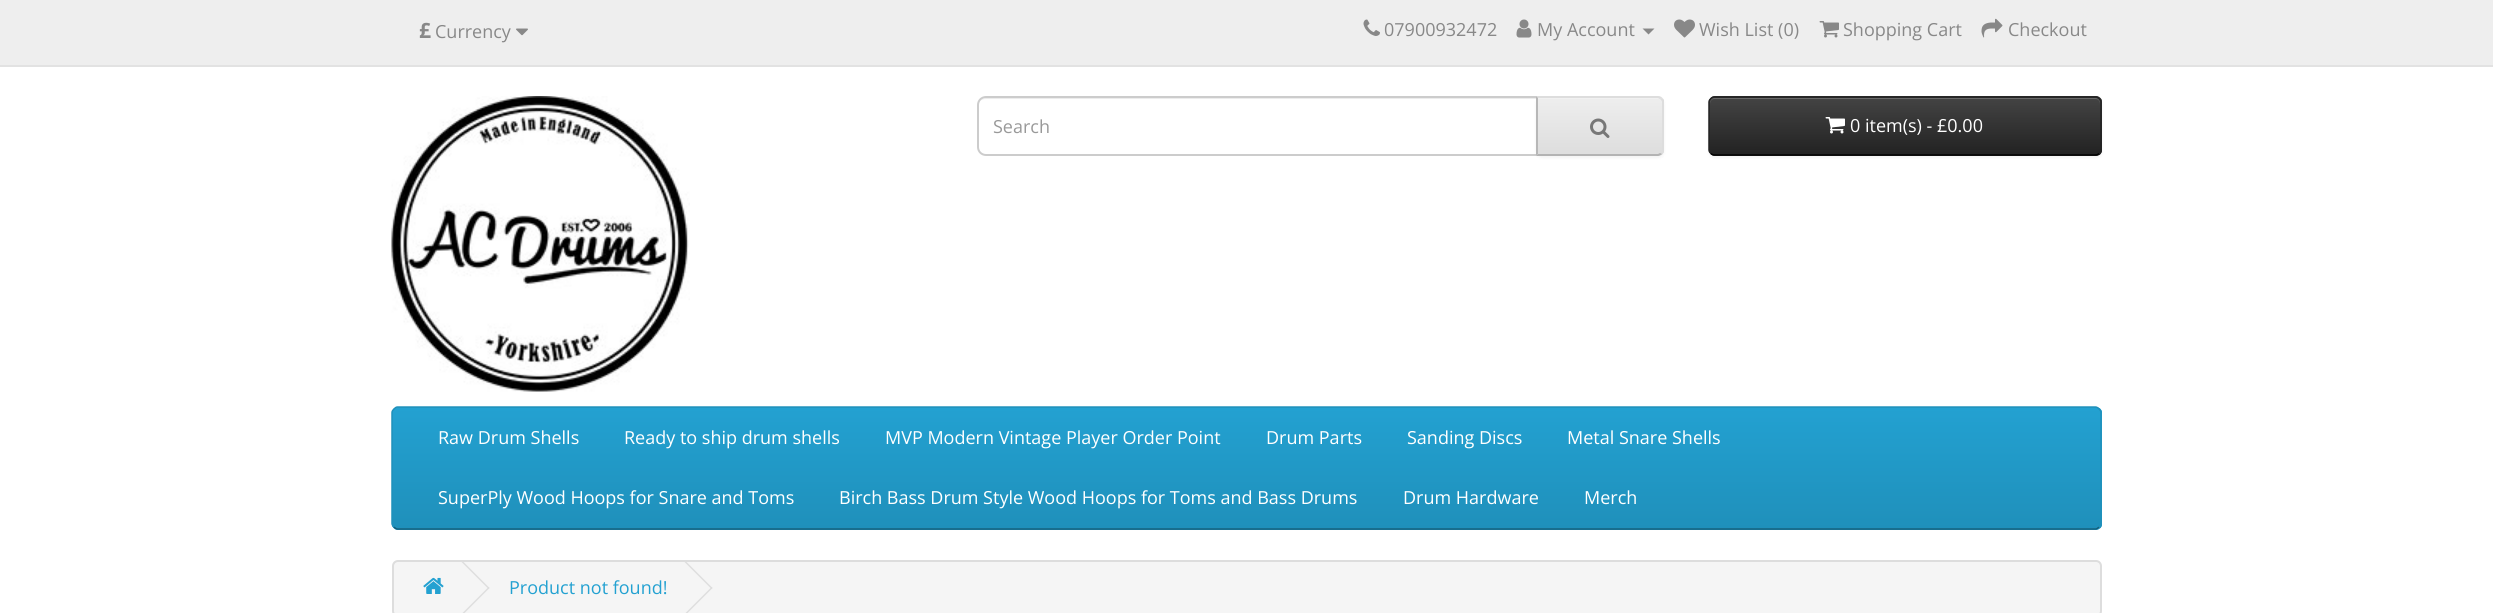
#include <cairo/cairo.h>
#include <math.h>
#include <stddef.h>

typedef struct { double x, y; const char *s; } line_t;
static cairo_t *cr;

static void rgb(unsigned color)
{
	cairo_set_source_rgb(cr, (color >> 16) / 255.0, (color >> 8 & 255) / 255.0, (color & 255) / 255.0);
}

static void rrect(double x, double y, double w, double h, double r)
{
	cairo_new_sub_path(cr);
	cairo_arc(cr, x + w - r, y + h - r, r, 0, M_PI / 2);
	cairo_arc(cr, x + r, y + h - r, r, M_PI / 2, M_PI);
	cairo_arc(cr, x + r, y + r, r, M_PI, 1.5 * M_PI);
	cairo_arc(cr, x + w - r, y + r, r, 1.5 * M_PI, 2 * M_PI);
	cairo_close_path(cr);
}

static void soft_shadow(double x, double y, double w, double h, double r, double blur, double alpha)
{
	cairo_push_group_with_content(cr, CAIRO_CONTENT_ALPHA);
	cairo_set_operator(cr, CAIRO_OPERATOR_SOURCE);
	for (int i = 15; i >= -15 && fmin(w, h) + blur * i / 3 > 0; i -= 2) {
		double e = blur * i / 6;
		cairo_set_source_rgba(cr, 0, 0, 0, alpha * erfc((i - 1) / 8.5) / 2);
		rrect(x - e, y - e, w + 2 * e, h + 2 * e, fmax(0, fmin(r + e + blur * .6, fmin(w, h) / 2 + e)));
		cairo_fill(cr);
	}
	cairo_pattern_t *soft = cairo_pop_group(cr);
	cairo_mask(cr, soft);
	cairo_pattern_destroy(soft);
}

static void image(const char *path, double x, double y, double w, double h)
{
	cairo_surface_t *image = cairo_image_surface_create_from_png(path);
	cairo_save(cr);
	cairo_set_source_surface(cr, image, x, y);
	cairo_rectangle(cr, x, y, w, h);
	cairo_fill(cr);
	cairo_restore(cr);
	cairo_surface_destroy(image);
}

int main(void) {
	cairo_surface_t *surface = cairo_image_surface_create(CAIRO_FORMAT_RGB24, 2493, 613);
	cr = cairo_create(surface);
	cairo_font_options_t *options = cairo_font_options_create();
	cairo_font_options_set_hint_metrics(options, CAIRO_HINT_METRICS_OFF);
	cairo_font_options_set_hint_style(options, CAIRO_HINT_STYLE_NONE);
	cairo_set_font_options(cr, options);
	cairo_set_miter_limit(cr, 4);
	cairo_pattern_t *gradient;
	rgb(0xffffff);
	cairo_paint(cr);
	rgb(0xeeeeee);
	cairo_rectangle(cr, 0, 0, 2493, 65);
	cairo_fill(cr);
	rgb(0xe2e2e2);
	cairo_rectangle(cr, 0, 65, 2493, 2);
	cairo_fill(cr);
	image("img/1.png", 516, 28, 12, 8);
	image("img/2.png", 1363, 19, 17, 17);
	image("img/3.png", 1516, 19, 16, 19);
	rgb(0x888888);
	cairo_new_path(cr);
	cairo_move_to(cr, 1642.5, 28.5);
	cairo_line_to(cr, 1654.5, 28.5);
	cairo_line_to(cr, 1648.5, 34.5);
	cairo_close_path(cr);
	cairo_fill(cr);
	image("img/4.png", 1674, 19, 21, 19);
	image("img/5.png", 1819, 21, 20, 17);
	image("img/6.png", 1981, 18, 22, 20);
	image("img/7.png", 391, 96, 299, 296);
	rgb(0xececec);
	cairo_new_path(cr);
	cairo_move_to(cr, 986, 99);
	cairo_line_to(cr, 1536, 99);
	cairo_line_to(cr, 1536, 98);
	cairo_line_to(cr, 986, 98);
	cairo_curve_to(cr, 982, 98, 978, 102, 978, 106);
	cairo_curve_to(cr, 978, 102, 981, 99, 986, 99);
	cairo_close_path(cr);
	cairo_fill(cr);
	cairo_new_path(cr);
	cairo_move_to(cr, 986, 97);
	cairo_line_to(cr, 1537, 97);
	cairo_line_to(cr, 1537, 155);
	cairo_line_to(cr, 986, 155);
	cairo_curve_to(cr, 981.5, 155, 978, 151.5, 978, 147);
	cairo_line_to(cr, 978, 105);
	cairo_curve_to(cr, 978, 100.5, 981.5, 97, 986, 97);
	cairo_close_path(cr);
	rgb(0xcccccc);
	cairo_stroke(cr);
	rgb(0x000000);
	soft_shadow(1536, 98, 128, 60, 6, 1.5, 0.05);
	rgb(0xe7e7e7);
	cairo_new_path(cr);
	cairo_move_to(cr, 1536, 96);
	cairo_line_to(cr, 1658, 96);
	cairo_curve_to(cr, 1661.5, 96, 1664, 98.5, 1664, 102);
	cairo_line_to(cr, 1664, 150);
	cairo_curve_to(cr, 1664, 153.5, 1661.5, 156, 1658, 156);
	cairo_line_to(cr, 1536, 156);
	cairo_close_path(cr);
	cairo_fill(cr);
	cairo_save(cr);
	cairo_new_path(cr);
	cairo_move_to(cr, 1536, 96);
	cairo_line_to(cr, 1658, 96);
	cairo_curve_to(cr, 1661.5, 96, 1664, 98.5, 1664, 102);
	cairo_line_to(cr, 1664, 150);
	cairo_curve_to(cr, 1664, 153.5, 1661.5, 156, 1658, 156);
	cairo_line_to(cr, 1536, 156);
	cairo_close_path(cr);
	cairo_clip(cr);
	gradient = cairo_pattern_create_linear(1600, 98, 1600, 155);
	cairo_pattern_add_color_stop_rgba(gradient, 0, 0.933, 0.933, 0.933, 1);
	cairo_pattern_add_color_stop_rgba(gradient, 1, 0.867, 0.867, 0.867, 1);
	cairo_set_source(cr, gradient);
	cairo_pattern_destroy(gradient);
	cairo_rectangle(cr, 1537, 98, 127, 57);
	cairo_fill(cr);
	cairo_restore(cr);
	rgb(0xf1f1f1);
	cairo_new_path(cr);
	cairo_move_to(cr, 1538, 99);
	cairo_line_to(cr, 1658, 99);
	cairo_curve_to(cr, 1660, 99, 1662, 101, 1662, 104);
	cairo_line_to(cr, 1662, 103);
	cairo_curve_to(cr, 1662, 100, 1660, 98, 1657, 98);
	cairo_line_to(cr, 1538, 98);
	cairo_close_path(cr);
	cairo_fill(cr);
	rgb(0xdddddd);
	cairo_new_path(cr);
	cairo_move_to(cr, 1536, 96);
	cairo_line_to(cr, 1538, 98);
	cairo_line_to(cr, 1658, 98);
	cairo_line_to(cr, 1660, 99);
	cairo_line_to(cr, 1662, 98);
	cairo_curve_to(cr, 1661, 97, 1659, 96, 1658, 96);
	cairo_close_path(cr);
	cairo_fill(cr);
	cairo_new_path(cr);
	cairo_move_to(cr, 1664, 152);
	cairo_line_to(cr, 1662, 154);
	cairo_line_to(cr, 1660, 153);
	cairo_curve_to(cr, 1661, 152, 1662, 151, 1662, 150);
	cairo_line_to(cr, 1662, 102);
	cairo_curve_to(cr, 1662, 101, 1661, 100, 1660, 99);
	cairo_line_to(cr, 1662, 98);
	cairo_line_to(cr, 1664, 100);
	cairo_close_path(cr);
	cairo_fill(cr);
	rgb(0xb3b3b3);
	cairo_new_path(cr);
	cairo_move_to(cr, 1658, 156);
	cairo_curve_to(cr, 1659, 156, 1661, 155, 1662, 154);
	cairo_line_to(cr, 1660, 153);
	cairo_line_to(cr, 1658, 154);
	cairo_line_to(cr, 1538, 154);
	cairo_line_to(cr, 1536, 156);
	cairo_close_path(cr);
	cairo_fill(cr);
	rgb(0xb7b7b7);
	cairo_new_path(cr);
	cairo_move_to(cr, 1536, 96);
	cairo_line_to(cr, 1536, 156);
	cairo_line_to(cr, 1538, 154);
	cairo_line_to(cr, 1538, 98);
	cairo_close_path(cr);
	cairo_fill(cr);
	image("img/8.png", 1590, 118, 20, 20);
	rgb(0x000000);
	soft_shadow(1709, 98, 393, 60, 6, 1.5, 0.05);
	rgb(0x363636);
	rrect(1709, 96, 393, 60, 6);
	cairo_fill(cr);
	cairo_save(cr);
	rrect(1709, 96, 393, 60, 6);
	cairo_clip(cr);
	gradient = cairo_pattern_create_linear(1905, 97, 1905, 155);
	cairo_pattern_add_color_stop_rgba(gradient, 0, 0.267, 0.267, 0.267, 1);
	cairo_pattern_add_color_stop_rgba(gradient, 1, 0.133, 0.133, 0.133, 1);
	cairo_set_source(cr, gradient);
	cairo_pattern_destroy(gradient);
	cairo_rectangle(cr, 1709, 98, 393, 57);
	cairo_fill(cr);
	cairo_restore(cr);
	rgb(0x696969);
	cairo_new_path(cr);
	cairo_move_to(cr, 1714, 99);
	cairo_line_to(cr, 2096, 99);
	cairo_curve_to(cr, 2098, 99, 2100, 101, 2100, 104);
	cairo_line_to(cr, 2100, 103);
	cairo_curve_to(cr, 2100, 100, 2098, 98, 2095, 98);
	cairo_line_to(cr, 1715, 98);
	cairo_curve_to(cr, 1712, 98, 1710, 100, 1710, 103);
	cairo_line_to(cr, 1710, 104);
	cairo_curve_to(cr, 1710, 101, 1712, 99, 1714, 99);
	cairo_close_path(cr);
	cairo_fill(cr);
	cairo_new_path(cr);
	cairo_move_to(cr, 2099, 153.5);
	cairo_curve_to(cr, 2098, 154.5, 2097, 155, 2095.5, 155);
	cairo_line_to(cr, 1714.5, 155);
	cairo_curve_to(cr, 1713, 155, 1712, 154.5, 1711, 153.5);
	rgb(0x000000);
	cairo_set_line_width(cr, 1.5);
	cairo_stroke(cr);
	cairo_new_path(cr);
	cairo_move_to(cr, 1711, 153.5);
	cairo_curve_to(cr, 1710, 152.5, 1709, 151.5, 1709, 150);
	cairo_line_to(cr, 1709, 102);
	cairo_curve_to(cr, 1709, 100.5, 1710, 99.5, 1711, 98.5);
	cairo_curve_to(cr, 1712, 97.5, 1713, 97, 1714.5, 97);
	cairo_line_to(cr, 2095.5, 97);
	cairo_curve_to(cr, 2097, 97, 2098, 97.5, 2099, 98.5);
	cairo_curve_to(cr, 2100, 99.5, 2101, 100.5, 2101, 102);
	cairo_line_to(cr, 2101, 150);
	cairo_curve_to(cr, 2101, 151.5, 2100, 152.5, 2099, 153.5);
	rgb(0x222222);
	cairo_stroke(cr);
	image("img/9.png", 1825, 117, 20, 17);
	rgb(0x229ac8);
	rrect(392, 407, 1710, 123, 6);
	cairo_fill(cr);
	cairo_save(cr);
	rrect(392, 407, 1710, 123, 6);
	cairo_clip(cr);
	gradient = cairo_pattern_create_linear(1247, 408, 1247, 528);
	cairo_pattern_add_color_stop_rgba(gradient, 0, 0.137, 0.631, 0.82, 1);
	cairo_pattern_add_color_stop_rgba(gradient, 1, 0.122, 0.565, 0.733, 1);
	cairo_set_source(cr, gradient);
	cairo_pattern_destroy(gradient);
	cairo_rectangle(cr, 392, 408, 1710, 120);
	cairo_fill(cr);
	cairo_restore(cr);
	cairo_new_path(cr);
	cairo_move_to(cr, 2099, 527);
	cairo_curve_to(cr, 2098, 528, 2097, 529, 2095.5, 529);
	cairo_line_to(cr, 397.5, 529);
	cairo_curve_to(cr, 396, 529, 395, 528, 394, 527);
	rgb(0x145e7a);
	cairo_stroke(cr);
	cairo_new_path(cr);
	cairo_move_to(cr, 394, 527);
	cairo_curve_to(cr, 393, 526, 392, 525, 392, 523.5);
	cairo_line_to(cr, 392, 412.5);
	cairo_curve_to(cr, 392, 411, 393, 410, 394, 409);
	cairo_curve_to(cr, 395, 408, 396, 407, 397.5, 407);
	cairo_line_to(cr, 2095.5, 407);
	cairo_curve_to(cr, 2097, 407, 2098, 408, 2099, 409);
	cairo_curve_to(cr, 2100, 410, 2101, 411, 2101, 412.5);
	cairo_line_to(cr, 2101, 523.5);
	cairo_curve_to(cr, 2101, 525, 2100, 526, 2099, 527);
	rgb(0x1f90bb);
	cairo_stroke(cr);
	rgb(0xf5f5f5);
	rrect(393, 561, 1708, 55, 5);
	cairo_fill_preserve(cr);
	rgb(0xdddddd);
	cairo_set_line_width(cr, 2);
	cairo_stroke(cr);
	image("img/10.png", 423, 577, 21, 17);
	cairo_new_path(cr);
	cairo_move_to(cr, 461, 561.5);
	cairo_line_to(cr, 462, 560.5);
	cairo_line_to(cr, 489.5, 588);
	cairo_line_to(cr, 488.5, 589);
	cairo_close_path(cr);
	cairo_fill(cr);
	cairo_new_path(cr);
	cairo_move_to(cr, 461, 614.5);
	cairo_line_to(cr, 488.5, 587);
	cairo_line_to(cr, 489.5, 588);
	cairo_line_to(cr, 462, 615.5);
	cairo_close_path(cr);
	cairo_fill(cr);
	cairo_new_path(cr);
	cairo_move_to(cr, 684, 561.5);
	cairo_line_to(cr, 685, 560.5);
	cairo_line_to(cr, 712.5, 588);
	cairo_line_to(cr, 711.5, 589);
	cairo_close_path(cr);
	cairo_fill(cr);
	cairo_new_path(cr);
	cairo_move_to(cr, 684, 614.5);
	cairo_line_to(cr, 711.5, 587);
	cairo_line_to(cr, 712.5, 588);
	cairo_line_to(cr, 685, 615.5);
	cairo_close_path(cr);
	cairo_fill(cr);
	cairo_select_font_face(cr, "Open Sans", CAIRO_FONT_SLANT_NORMAL, CAIRO_FONT_WEIGHT_BOLD);
	cairo_set_font_size(cr, 21);
	rgb(0x888888);
	cairo_move_to(cr, 419, 38);
	cairo_show_text(cr, "£");
	cairo_select_font_face(cr, "Open Sans", CAIRO_FONT_SLANT_NORMAL, CAIRO_FONT_WEIGHT_NORMAL);
	cairo_set_font_size(cr, 18);
	{
		static const line_t items[] = {
			{435, 38, "Currency"},
			{1384, 36, "07900932472"},
			{1537, 36, "My Account"},
			{1699, 36, "Wish List (0)"},
			{1843, 36, "Shopping Cart"},
			{2008, 36, "Checkout"},
		};
		for (size_t i = 0; i < sizeof items / sizeof *items; i++) {
			cairo_move_to(cr, items[i].x, items[i].y);
			cairo_show_text(cr, items[i].s);
		}
	}
	rgb(0x999999);
	cairo_move_to(cr, 993, 133);
	cairo_show_text(cr, "Search");
	rgb(0xffffff);
	{
		static const line_t items[] = {
			{1850, 132, "0 item(s) - £0.00"},
			{438, 444, "Raw Drum Shells"},
			{624, 444, "Ready to ship drum shells"},
			{885, 444, "MVP Modern Vintage Player Order Point"},
			{1266, 444, "Drum Parts"},
			{1407, 444, "Sanding Discs"},
			{1567, 444, "Metal Snare Shells"},
			{438, 504, "SuperPly Wood Hoops for Snare and Toms"},
			{839, 504, "Birch Bass Drum Style Wood Hoops for Toms and Bass Drums"},
			{1403, 504, "Drum Hardware"},
			{1584, 504, "Merch"},
		};
		for (size_t i = 0; i < sizeof items / sizeof *items; i++) {
			cairo_move_to(cr, items[i].x, items[i].y);
			cairo_show_text(cr, items[i].s);
		}
	}
	rgb(0x23a1d1);
	cairo_move_to(cr, 509, 594);
	cairo_show_text(cr, "Product not found!");
	cairo_surface_write_to_png(surface, "page.png");
	cairo_font_options_destroy(options);
	cairo_destroy(cr);
	cairo_surface_destroy(surface);
	return 0;
}
